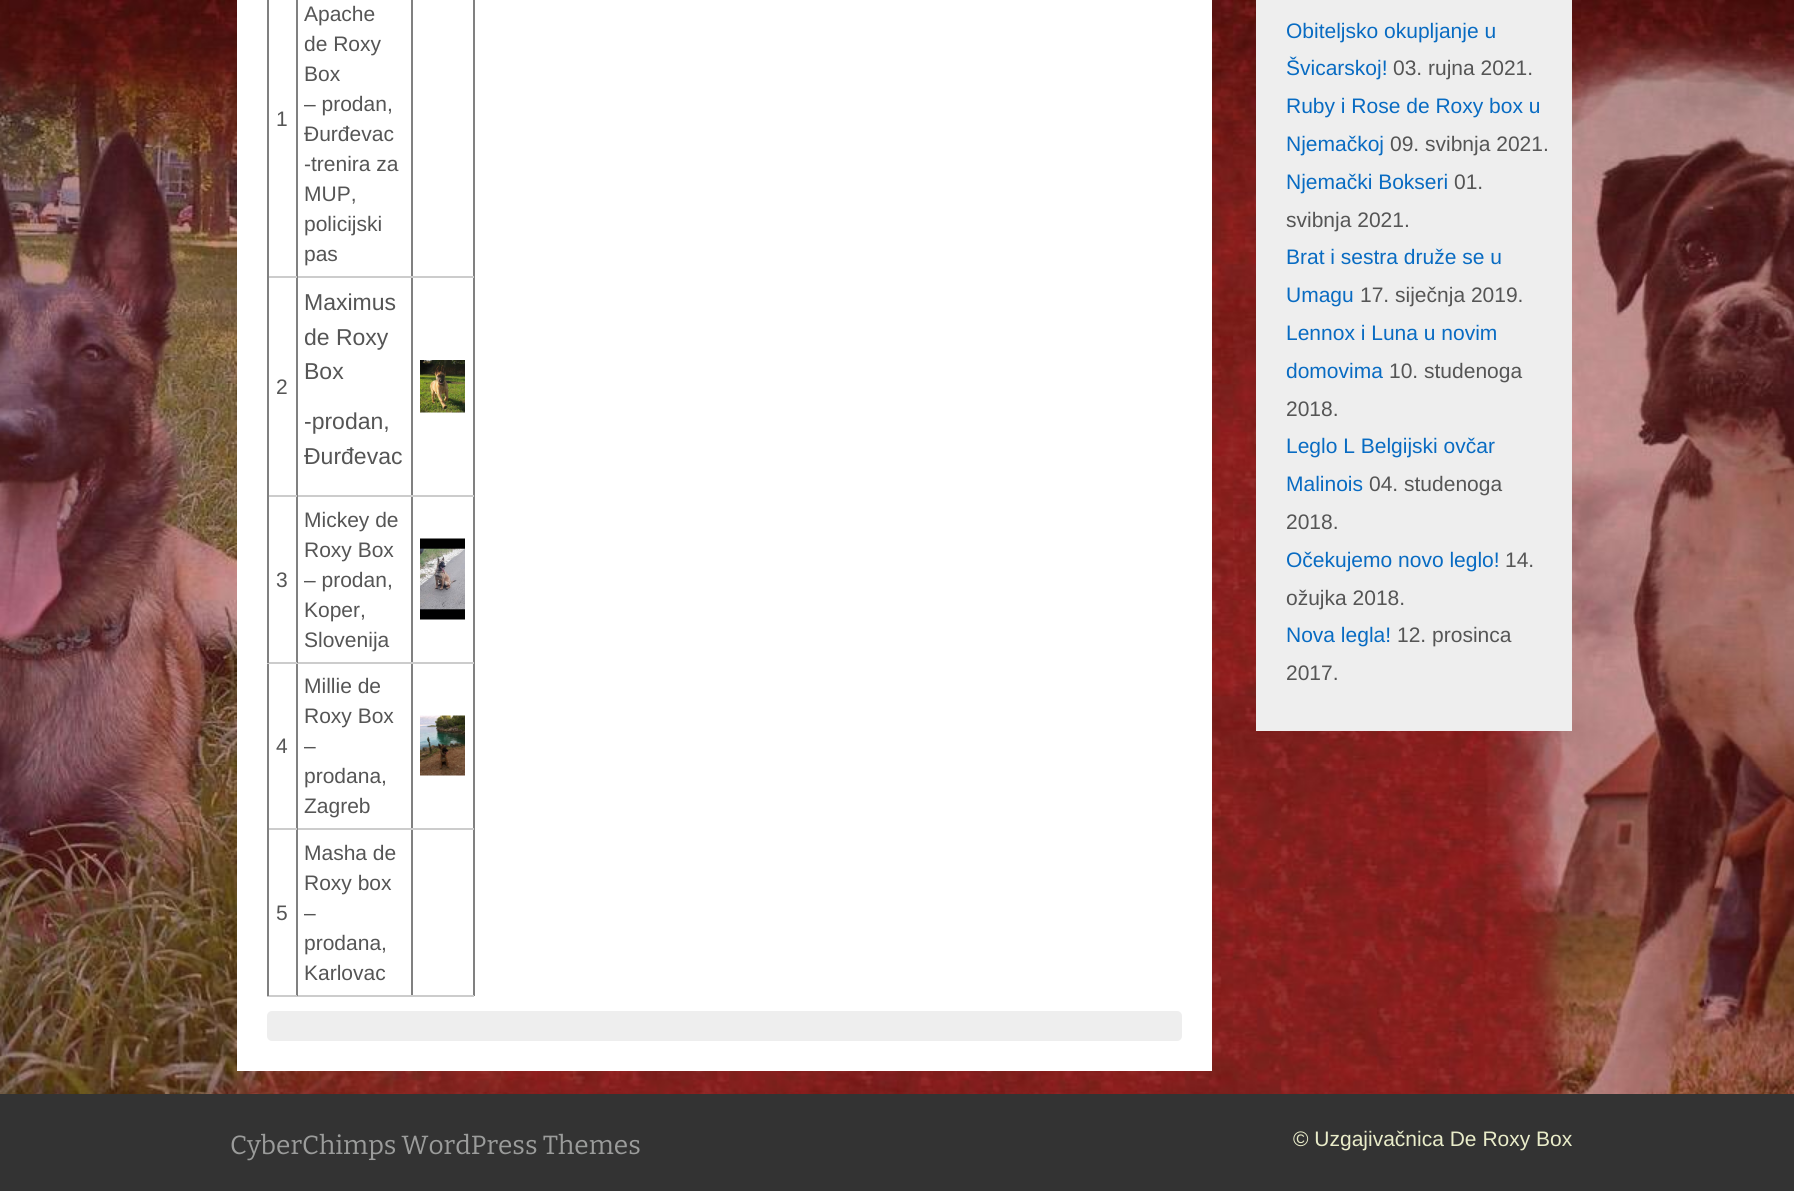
#include <cairo/cairo.h>
#include <math.h>
#include <stddef.h>

typedef struct { double x, y; const char *s; } line_t;
typedef struct { double x, y, w, h; unsigned color; } box_t;
static cairo_t *cr;

static void rgb(unsigned color)
{
	cairo_set_source_rgb(cr, (color >> 16) / 255.0, (color >> 8 & 255) / 255.0, (color & 255) / 255.0);
}

static void rrect(double x, double y, double w, double h, double r)
{
	cairo_new_sub_path(cr);
	cairo_arc(cr, x + w - r, y + h - r, r, 0, M_PI / 2);
	cairo_arc(cr, x + r, y + h - r, r, M_PI / 2, M_PI);
	cairo_arc(cr, x + r, y + r, r, M_PI, 1.5 * M_PI);
	cairo_arc(cr, x + w - r, y + r, r, 1.5 * M_PI, 2 * M_PI);
	cairo_close_path(cr);
}

static void image(const char *path, double x, double y, double w, double h)
{
	cairo_surface_t *image = cairo_image_surface_create_from_png(path);
	cairo_save(cr);
	cairo_set_source_surface(cr, image, x, y);
	cairo_rectangle(cr, x, y, w, h);
	cairo_fill(cr);
	cairo_restore(cr);
	cairo_surface_destroy(image);
}

int main(void) {
	cairo_surface_t *surface = cairo_image_surface_create(CAIRO_FORMAT_RGB24, 1794, 1191);
	cr = cairo_create(surface);
	cairo_font_options_t *options = cairo_font_options_create();
	cairo_font_options_set_hint_metrics(options, CAIRO_HINT_METRICS_OFF);
	cairo_font_options_set_hint_style(options, CAIRO_HINT_STYLE_NONE);
	cairo_set_font_options(cr, options);
	cairo_set_miter_limit(cr, 4);
	rgb(0xffffff);
	cairo_paint(cr);
	image("img/1.png", 0, 0, 1794, 1094);
	{
		static const box_t items[] = {
			{237, 0, 975, 1071, 0xffffff},
			{473, 0, 2, 996, 0x808080},
			{411, 995, 63, 2, 0xcccccc},
			{411, 828, 2, 168, 0x808080},
			{411, 828, 63, 2, 0xcccccc},
			{411, 662, 2, 168, 0x808080},
			{411, 662, 63, 2, 0xcccccc},
			{411, 495, 2, 168, 0x808080},
			{411, 495, 63, 2, 0xcccccc},
			{411, 276, 2, 221, 0x808080},
			{411, 276, 63, 2, 0xcccccc},
			{411, 0, 2, 278, 0x808080},
			{296, 995, 117, 2, 0xcccccc},
			{296, 828, 2, 168, 0x808080},
			{296, 828, 117, 2, 0xcccccc},
			{296, 662, 2, 168, 0x808080},
			{296, 662, 117, 2, 0xcccccc},
			{296, 495, 2, 168, 0x808080},
			{296, 495, 117, 2, 0xcccccc},
			{296, 276, 2, 221, 0x808080},
			{296, 276, 117, 2, 0xcccccc},
			{296, 0, 2, 278, 0x808080},
			{267, 995, 30, 2, 0xcccccc},
			{267, 828, 2, 168, 0x808080},
			{267, 828, 30, 2, 0xcccccc},
			{267, 662, 2, 168, 0x808080},
			{267, 662, 30, 2, 0xcccccc},
			{267, 495, 2, 168, 0x808080},
			{267, 495, 30, 2, 0xcccccc},
			{267, 276, 2, 221, 0x808080},
			{267, 276, 30, 2, 0xcccccc},
			{267, 0, 2, 278, 0x808080},
		};
		for (size_t i = 0; i < sizeof items / sizeof *items; i++) {
			rgb(items[i].color);
			cairo_rectangle(cr, items[i].x, items[i].y, items[i].w, items[i].h);
			cairo_fill(cr);
		}
	}
	image("img/2.png", 420, 360, 45, 53);
	image("img/3.png", 420, 538, 45, 82);
	image("img/4.png", 420, 715, 45, 61);
	rgb(0xeeeeee);
	rrect(267, 1011, 915, 30, 5);
	cairo_fill(cr);
	cairo_rectangle(cr, 1256, 0, 316, 731);
	cairo_fill(cr);
	rgb(0x333333);
	cairo_rectangle(cr, 0, 1094, 1794, 97);
	cairo_fill(cr);
	cairo_select_font_face(cr, "Liberation Sans", CAIRO_FONT_SLANT_NORMAL, CAIRO_FONT_WEIGHT_NORMAL);
	cairo_set_font_size(cr, 21);
	rgb(0x555555);
	{
		static const line_t items[] = {
			{276, 126, "1"},
			{304, 21, "Apache"},
			{304, 51, "de Roxy"},
			{304, 81, "Box"},
			{304, 111, "– prodan,"},
			{304, 141, "Đurđevac"},
			{304, 171, "-trenira za"},
			{304, 201, "MUP,"},
			{304, 231, "policijski"},
			{304, 261, "pas"},
			{276, 394, "2"},
		};
		for (size_t i = 0; i < sizeof items / sizeof *items; i++) {
			cairo_move_to(cr, items[i].x, items[i].y);
			cairo_show_text(cr, items[i].s);
		}
	}
	cairo_set_font_size(cr, 23);
	{
		static const line_t items[] = {
			{304, 310, "Maximus"},
			{304, 345, "de Roxy"},
			{304, 379, "Box"},
			{304, 429, "-prodan,"},
			{304, 464, "Đurđevac"},
		};
		for (size_t i = 0; i < sizeof items / sizeof *items; i++) {
			cairo_move_to(cr, items[i].x, items[i].y);
			cairo_show_text(cr, items[i].s);
		}
	}
	cairo_set_font_size(cr, 21);
	{
		static const line_t items[] = {
			{276, 587, "3"},
			{304, 527, "Mickey de"},
			{304, 557, "Roxy Box"},
			{304, 587, "– prodan,"},
			{304, 617, "Koper,"},
			{304, 647, "Slovenija"},
			{276, 753, "4"},
			{304, 693, "Millie de"},
			{304, 723, "Roxy Box"},
			{304, 753, "–"},
			{304, 783, "prodana,"},
			{304, 813, "Zagreb"},
			{276, 920, "5"},
			{304, 860, "Masha de"},
			{304, 890, "Roxy box"},
			{304, 920, "–"},
			{304, 950, "prodana,"},
			{304, 980, "Karlovac"},
		};
		for (size_t i = 0; i < sizeof items / sizeof *items; i++) {
			cairo_move_to(cr, items[i].x, items[i].y);
			cairo_show_text(cr, items[i].s);
		}
	}
	rgb(0x086bc2);
	cairo_move_to(cr, 1286, 38);
	cairo_show_text(cr, "Obiteljsko okupljanje u");
	cairo_move_to(cr, 1286, 75);
	cairo_show_text(cr, "Švicarskoj!");
	rgb(0x555555);
	cairo_move_to(cr, 1393, 75);
	cairo_show_text(cr, "03. rujna 2021.");
	rgb(0x086bc2);
	cairo_move_to(cr, 1286, 113);
	cairo_show_text(cr, "Ruby i Rose de Roxy box u");
	cairo_move_to(cr, 1286, 151);
	cairo_show_text(cr, "Njemačkoj");
	rgb(0x555555);
	cairo_move_to(cr, 1390, 151);
	cairo_show_text(cr, "09. svibnja 2021.");
	rgb(0x086bc2);
	cairo_move_to(cr, 1286, 189);
	cairo_show_text(cr, "Njemački Bokseri");
	rgb(0x555555);
	cairo_move_to(cr, 1454, 189);
	cairo_show_text(cr, "01.");
	cairo_move_to(cr, 1286, 227);
	cairo_show_text(cr, "svibnja 2021.");
	rgb(0x086bc2);
	cairo_move_to(cr, 1286, 264);
	cairo_show_text(cr, "Brat i sestra druže se u");
	cairo_move_to(cr, 1286, 302);
	cairo_show_text(cr, "Umagu");
	rgb(0x555555);
	cairo_move_to(cr, 1360, 302);
	cairo_show_text(cr, "17. siječnja 2019.");
	rgb(0x086bc2);
	cairo_move_to(cr, 1286, 340);
	cairo_show_text(cr, "Lennox i Luna u novim");
	cairo_move_to(cr, 1286, 378);
	cairo_show_text(cr, "domovima");
	rgb(0x555555);
	cairo_move_to(cr, 1389, 378);
	cairo_show_text(cr, "10. studenoga");
	cairo_move_to(cr, 1286, 416);
	cairo_show_text(cr, "2018.");
	rgb(0x086bc2);
	cairo_move_to(cr, 1286, 453);
	cairo_show_text(cr, "Leglo L Belgijski ovčar");
	cairo_move_to(cr, 1286, 491);
	cairo_show_text(cr, "Malinois");
	rgb(0x555555);
	cairo_move_to(cr, 1369, 491);
	cairo_show_text(cr, "04. studenoga");
	cairo_move_to(cr, 1286, 529);
	cairo_show_text(cr, "2018.");
	rgb(0x086bc2);
	cairo_move_to(cr, 1286, 567);
	cairo_show_text(cr, "Očekujemo novo leglo!");
	rgb(0x555555);
	cairo_move_to(cr, 1505, 567);
	cairo_show_text(cr, "14.");
	cairo_move_to(cr, 1286, 605);
	cairo_show_text(cr, "ožujka 2018.");
	rgb(0x086bc2);
	cairo_move_to(cr, 1286, 642);
	cairo_show_text(cr, "Nova legla!");
	rgb(0x555555);
	cairo_move_to(cr, 1397, 642);
	cairo_show_text(cr, "12. prosinca");
	cairo_move_to(cr, 1286, 680);
	cairo_show_text(cr, "2017.");
	cairo_select_font_face(cr, "Bitter", CAIRO_FONT_SLANT_NORMAL, CAIRO_FONT_WEIGHT_NORMAL);
	cairo_set_font_size(cr, 26.25);
	rgb(0x9b9c9b);
	cairo_move_to(cr, 230, 1154);
	cairo_show_text(cr, "CyberChimps WordPress Themes");
	cairo_select_font_face(cr, "Liberation Sans", CAIRO_FONT_SLANT_NORMAL, CAIRO_FONT_WEIGHT_NORMAL);
	cairo_set_font_size(cr, 21);
	rgb(0xe9ecc9);
	cairo_move_to(cr, 1293, 1146);
	cairo_show_text(cr, "© Uzgajivačnica De Roxy Box");
	cairo_surface_write_to_png(surface, "page.png");
	cairo_font_options_destroy(options);
	cairo_destroy(cr);
	cairo_surface_destroy(surface);
	return 0;
}
